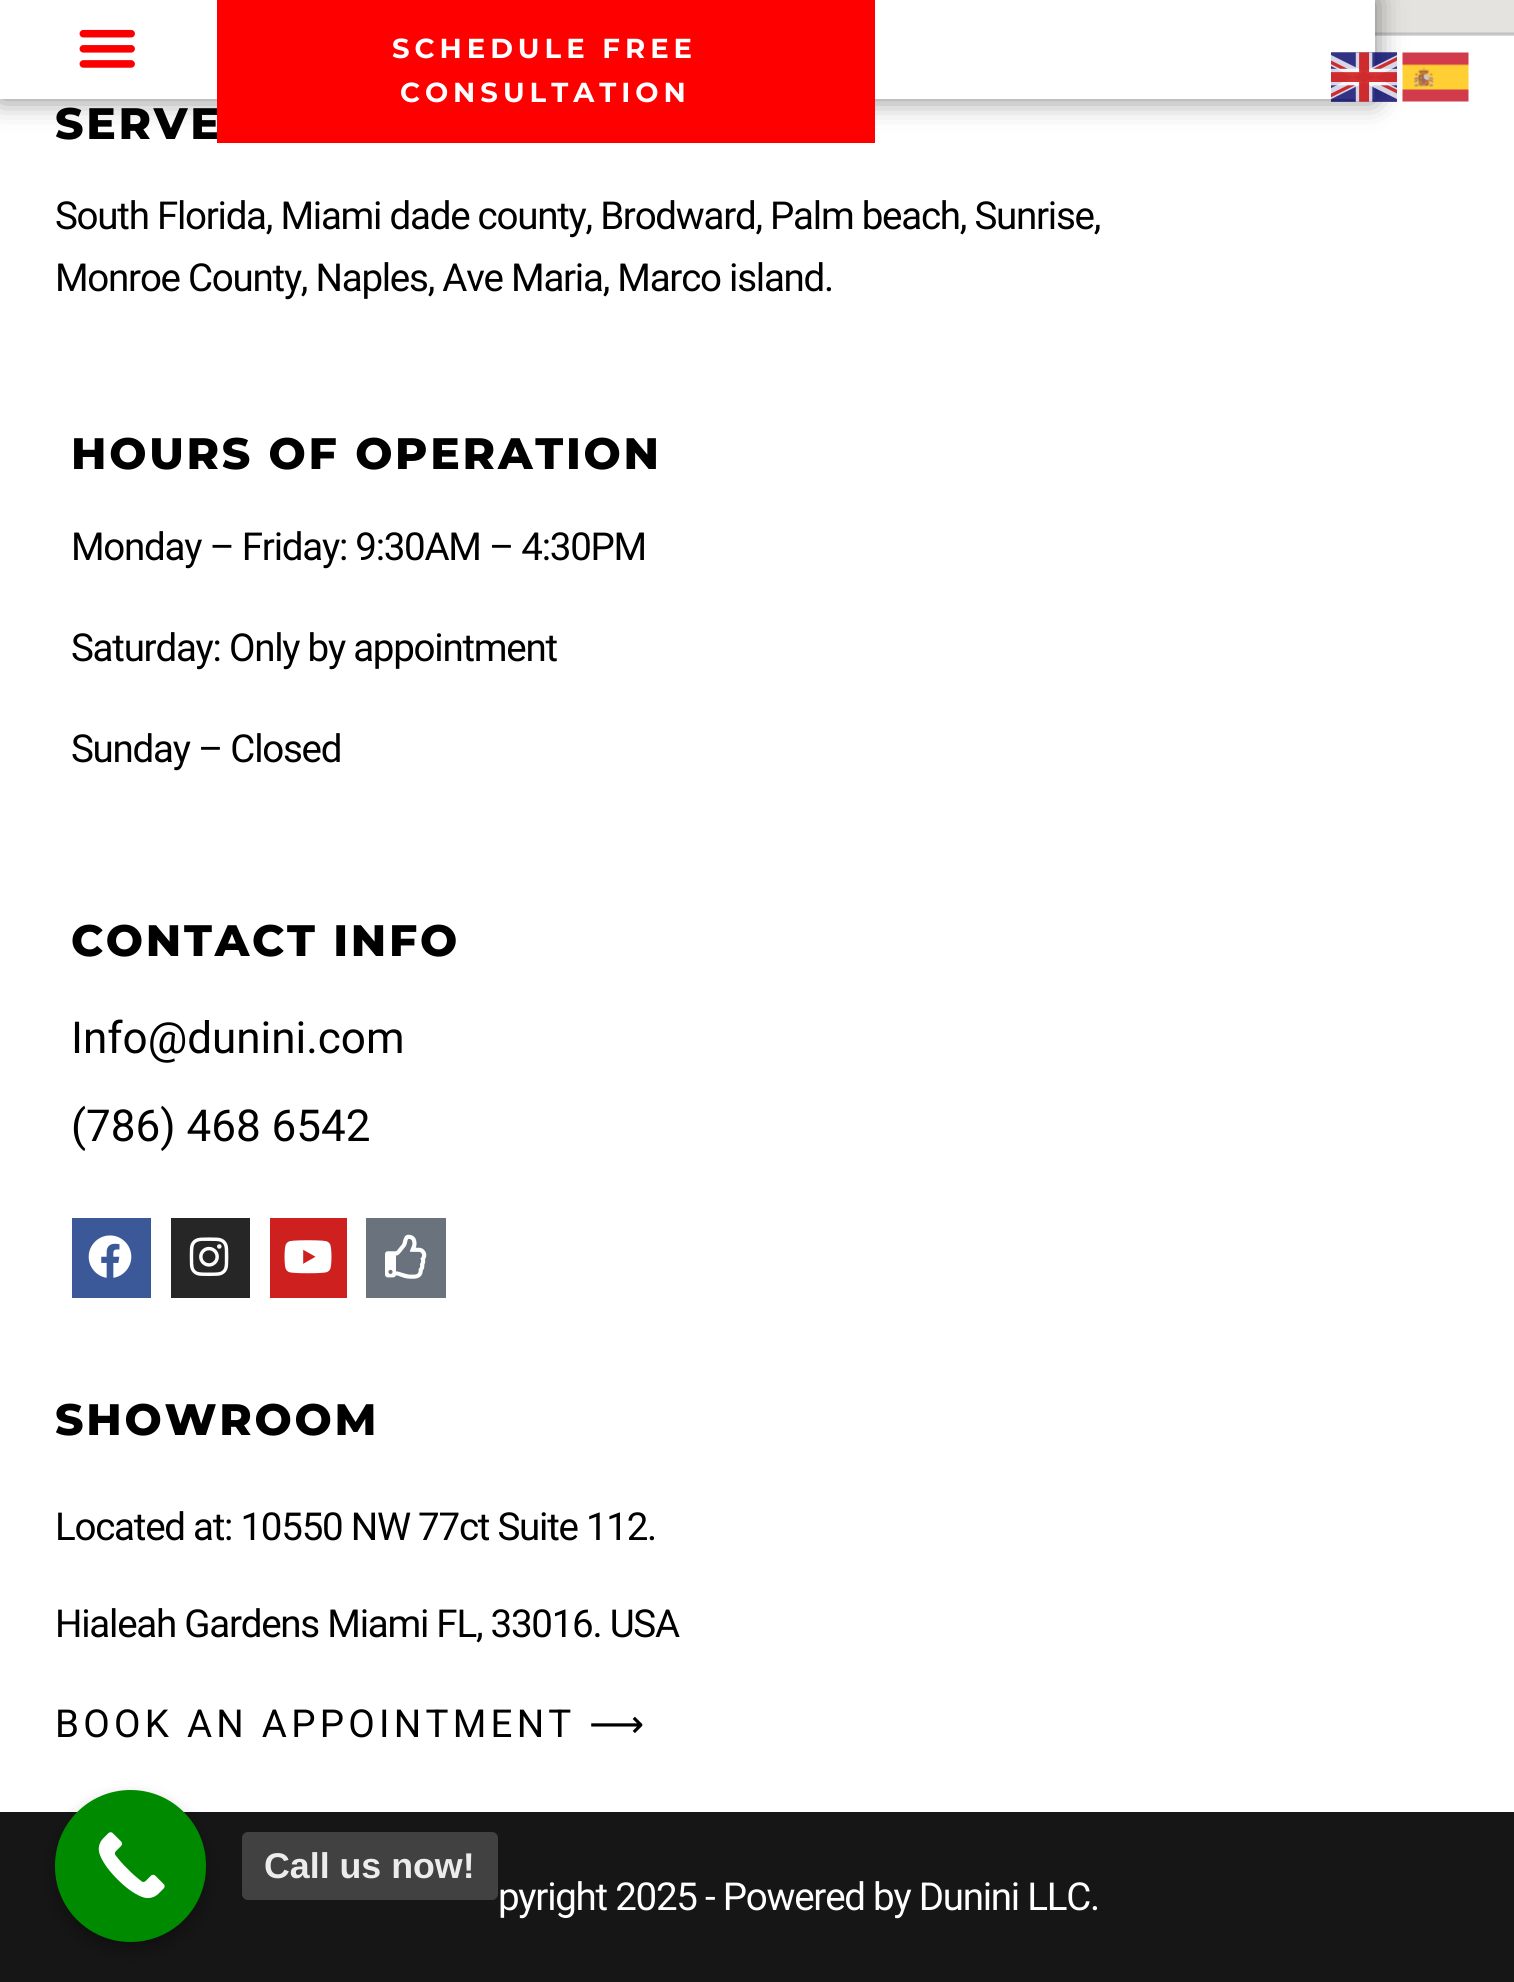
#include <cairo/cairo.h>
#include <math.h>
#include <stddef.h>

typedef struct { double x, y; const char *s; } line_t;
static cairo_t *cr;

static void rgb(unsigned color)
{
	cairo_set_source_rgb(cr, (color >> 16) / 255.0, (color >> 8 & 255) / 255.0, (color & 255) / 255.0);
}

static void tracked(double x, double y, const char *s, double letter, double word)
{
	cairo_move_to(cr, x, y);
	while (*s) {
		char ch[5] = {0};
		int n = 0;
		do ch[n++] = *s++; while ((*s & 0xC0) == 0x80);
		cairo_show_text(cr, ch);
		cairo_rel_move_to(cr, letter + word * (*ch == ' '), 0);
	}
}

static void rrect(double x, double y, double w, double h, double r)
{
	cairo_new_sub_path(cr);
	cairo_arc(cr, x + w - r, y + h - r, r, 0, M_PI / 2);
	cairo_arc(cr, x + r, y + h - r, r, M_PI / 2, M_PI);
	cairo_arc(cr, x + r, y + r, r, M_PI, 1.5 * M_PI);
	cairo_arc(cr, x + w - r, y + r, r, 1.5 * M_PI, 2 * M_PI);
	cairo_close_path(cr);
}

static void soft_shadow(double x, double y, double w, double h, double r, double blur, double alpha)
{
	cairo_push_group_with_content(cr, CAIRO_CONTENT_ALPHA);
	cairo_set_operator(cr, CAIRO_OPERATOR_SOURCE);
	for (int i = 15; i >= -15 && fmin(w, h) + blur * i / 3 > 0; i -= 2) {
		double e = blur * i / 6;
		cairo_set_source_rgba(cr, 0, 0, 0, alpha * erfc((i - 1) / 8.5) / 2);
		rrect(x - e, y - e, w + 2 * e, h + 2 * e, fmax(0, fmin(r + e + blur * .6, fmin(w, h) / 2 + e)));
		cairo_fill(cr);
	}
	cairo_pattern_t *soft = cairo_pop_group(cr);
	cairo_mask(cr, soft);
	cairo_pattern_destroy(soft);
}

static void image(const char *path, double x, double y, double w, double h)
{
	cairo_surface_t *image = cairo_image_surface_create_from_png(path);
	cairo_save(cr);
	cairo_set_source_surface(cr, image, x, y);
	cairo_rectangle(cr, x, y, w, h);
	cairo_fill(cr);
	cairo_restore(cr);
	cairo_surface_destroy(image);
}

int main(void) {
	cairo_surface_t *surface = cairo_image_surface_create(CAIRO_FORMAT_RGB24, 1514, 1982);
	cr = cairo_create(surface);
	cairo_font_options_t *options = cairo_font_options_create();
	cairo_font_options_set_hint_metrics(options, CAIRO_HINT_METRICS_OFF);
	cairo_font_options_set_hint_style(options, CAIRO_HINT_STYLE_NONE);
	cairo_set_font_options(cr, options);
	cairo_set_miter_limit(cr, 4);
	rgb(0xffffff);
	cairo_paint(cr);
	image("img/4.png", 1375, 0, 139, 36);
	rgb(0x000000);
	soft_shadow(0, 0, 1375, 99, 0, 14, 0.5);
	rgb(0xffffff);
	cairo_rectangle(cr, 0, 0, 1375, 99);
	cairo_fill(cr);
	image("img/1.png", 79, 29, 56, 39);
	image("img/2.png", 1331, 52, 66, 50);
	image("img/3.png", 1402, 52, 67, 50);
	rgb(0x3b5998);
	cairo_rectangle(cr, 72, 1218, 79, 80);
	cairo_fill(cr);
	image("img/5.png", 88, 1235, 44, 43);
	rgb(0x262626);
	cairo_rectangle(cr, 171, 1218, 79, 80);
	cairo_fill(cr);
	image("img/6.png", 189, 1237, 40, 39);
	rgb(0xcd201f);
	cairo_rectangle(cr, 270, 1218, 77, 80);
	cairo_fill(cr);
	image("img/7.png", 284, 1240, 48, 34);
	rgb(0x69727d);
	cairo_rectangle(cr, 366, 1218, 80, 80);
	cairo_fill(cr);
	image("img/8.png", 385, 1234, 42, 45);
	rgb(0x161616);
	cairo_rectangle(cr, 0, 1812, 1514, 170);
	cairo_fill(cr);
	rgb(0x000000);
	soft_shadow(55, 1799, 151, 151, 75.5, 8, 0.3);
	rgb(0x008a00);
	rrect(55, 1790, 151, 152, 75.5);
	cairo_fill(cr);
	image("img/9.png", 98, 1832, 67, 67);
	cairo_set_source_rgba(cr, 0.275, 0.275, 0.275, 0.9);
	rrect(242, 1832, 256, 68, 6);
	cairo_fill(cr);
	cairo_select_font_face(cr, "Montserrat ExtraBold", CAIRO_FONT_SLANT_NORMAL, CAIRO_FONT_WEIGHT_NORMAL);
	cairo_set_font_size(cr, 44);
	rgb(0x000000);
	tracked(55, 139, "SERVE", 2.75, 0);
	rgb(0xff0000);
	cairo_rectangle(cr, 217, 0, 658, 143);
	cairo_fill(cr);
	cairo_select_font_face(cr, "Montserrat", CAIRO_FONT_SLANT_NORMAL, CAIRO_FONT_WEIGHT_BOLD);
	cairo_set_font_size(cr, 27.5);
	rgb(0xffffff);
	tracked(400, 102, "CONSULTATION", 5, 0);
	tracked(392, 58, "SCHEDULE FREE", 5, 0);
	cairo_select_font_face(cr, "Roboto", CAIRO_FONT_SLANT_NORMAL, CAIRO_FONT_WEIGHT_NORMAL);
	cairo_set_font_size(cr, 38.5);
	rgb(0x000000);
	tracked(55, 229, "South Florida, Miami dade county, Brodward, Palm beach, Sunrise,", -1.25, 0);
	tracked(55, 291, "Monroe County, Naples, Ave Maria, Marco island.", -1.25, 0);
	cairo_select_font_face(cr, "Montserrat ExtraBold", CAIRO_FONT_SLANT_NORMAL, CAIRO_FONT_WEIGHT_NORMAL);
	cairo_set_font_size(cr, 44);
	tracked(71, 469, "HOURS OF OPERATION", 2.75, 0);
	cairo_select_font_face(cr, "Roboto", CAIRO_FONT_SLANT_NORMAL, CAIRO_FONT_WEIGHT_NORMAL);
	cairo_set_font_size(cr, 38.5);
	{
		static const line_t items[] = {
			{71, 560, "Monday – Friday: 9:30AM – 4:30PM"},
			{71, 661, "Saturday: Only by appointment"},
			{71, 762, "Sunday – Closed"},
		};
		for (size_t i = 0; i < sizeof items / sizeof *items; i++) {
			tracked(items[i].x, items[i].y, items[i].s, -1.25, 0);
		}
	}
	cairo_select_font_face(cr, "Montserrat ExtraBold", CAIRO_FONT_SLANT_NORMAL, CAIRO_FONT_WEIGHT_NORMAL);
	cairo_set_font_size(cr, 44);
	tracked(71, 956, "CONTACT INFO", 2.75, 0);
	cairo_select_font_face(cr, "Roboto", CAIRO_FONT_SLANT_NORMAL, CAIRO_FONT_WEIGHT_NORMAL);
	cairo_move_to(cr, 71, 1053);
	cairo_show_text(cr, "Info@dunini.com");
	cairo_move_to(cr, 71, 1141);
	cairo_show_text(cr, "(786) 468 6542");
	cairo_select_font_face(cr, "Montserrat ExtraBold", CAIRO_FONT_SLANT_NORMAL, CAIRO_FONT_WEIGHT_NORMAL);
	tracked(55, 1435, "SHOWROOM", 2.75, 0);
	cairo_select_font_face(cr, "Roboto", CAIRO_FONT_SLANT_NORMAL, CAIRO_FONT_WEIGHT_NORMAL);
	cairo_set_font_size(cr, 38.5);
	tracked(55, 1540, "Located at: 10550 NW 77ct Suite 112.", -1.25, 0);
	tracked(55, 1637, "Hialeah Gardens Miami FL, 33016. USA", -1.25, 0);
	tracked(55, 1737, "BOOK AN APPOINTMENT", 4.25, 0);
	cairo_select_font_face(cr, "DejaVu Sans", CAIRO_FONT_SLANT_NORMAL, CAIRO_FONT_WEIGHT_NORMAL);
	tracked(589, 1737, "⟶", 4.25, 0);
	cairo_select_font_face(cr, "Roboto", CAIRO_FONT_SLANT_NORMAL, CAIRO_FONT_WEIGHT_NORMAL);
	rgb(0xffffff);
	tracked(498, 1910, "pyright 2025 - Powered by Dunini LLC.", -1.25, 0);
	cairo_select_font_face(cr, "Liberation Sans", CAIRO_FONT_SLANT_NORMAL, CAIRO_FONT_WEIGHT_BOLD);
	cairo_set_font_size(cr, 35.75);
	rgb(0xececec);
	cairo_move_to(cr, 264, 1878);
	cairo_show_text(cr, "Call us now!");
	cairo_surface_write_to_png(surface, "page.png");
	cairo_font_options_destroy(options);
	cairo_destroy(cr);
	cairo_surface_destroy(surface);
	return 0;
}
